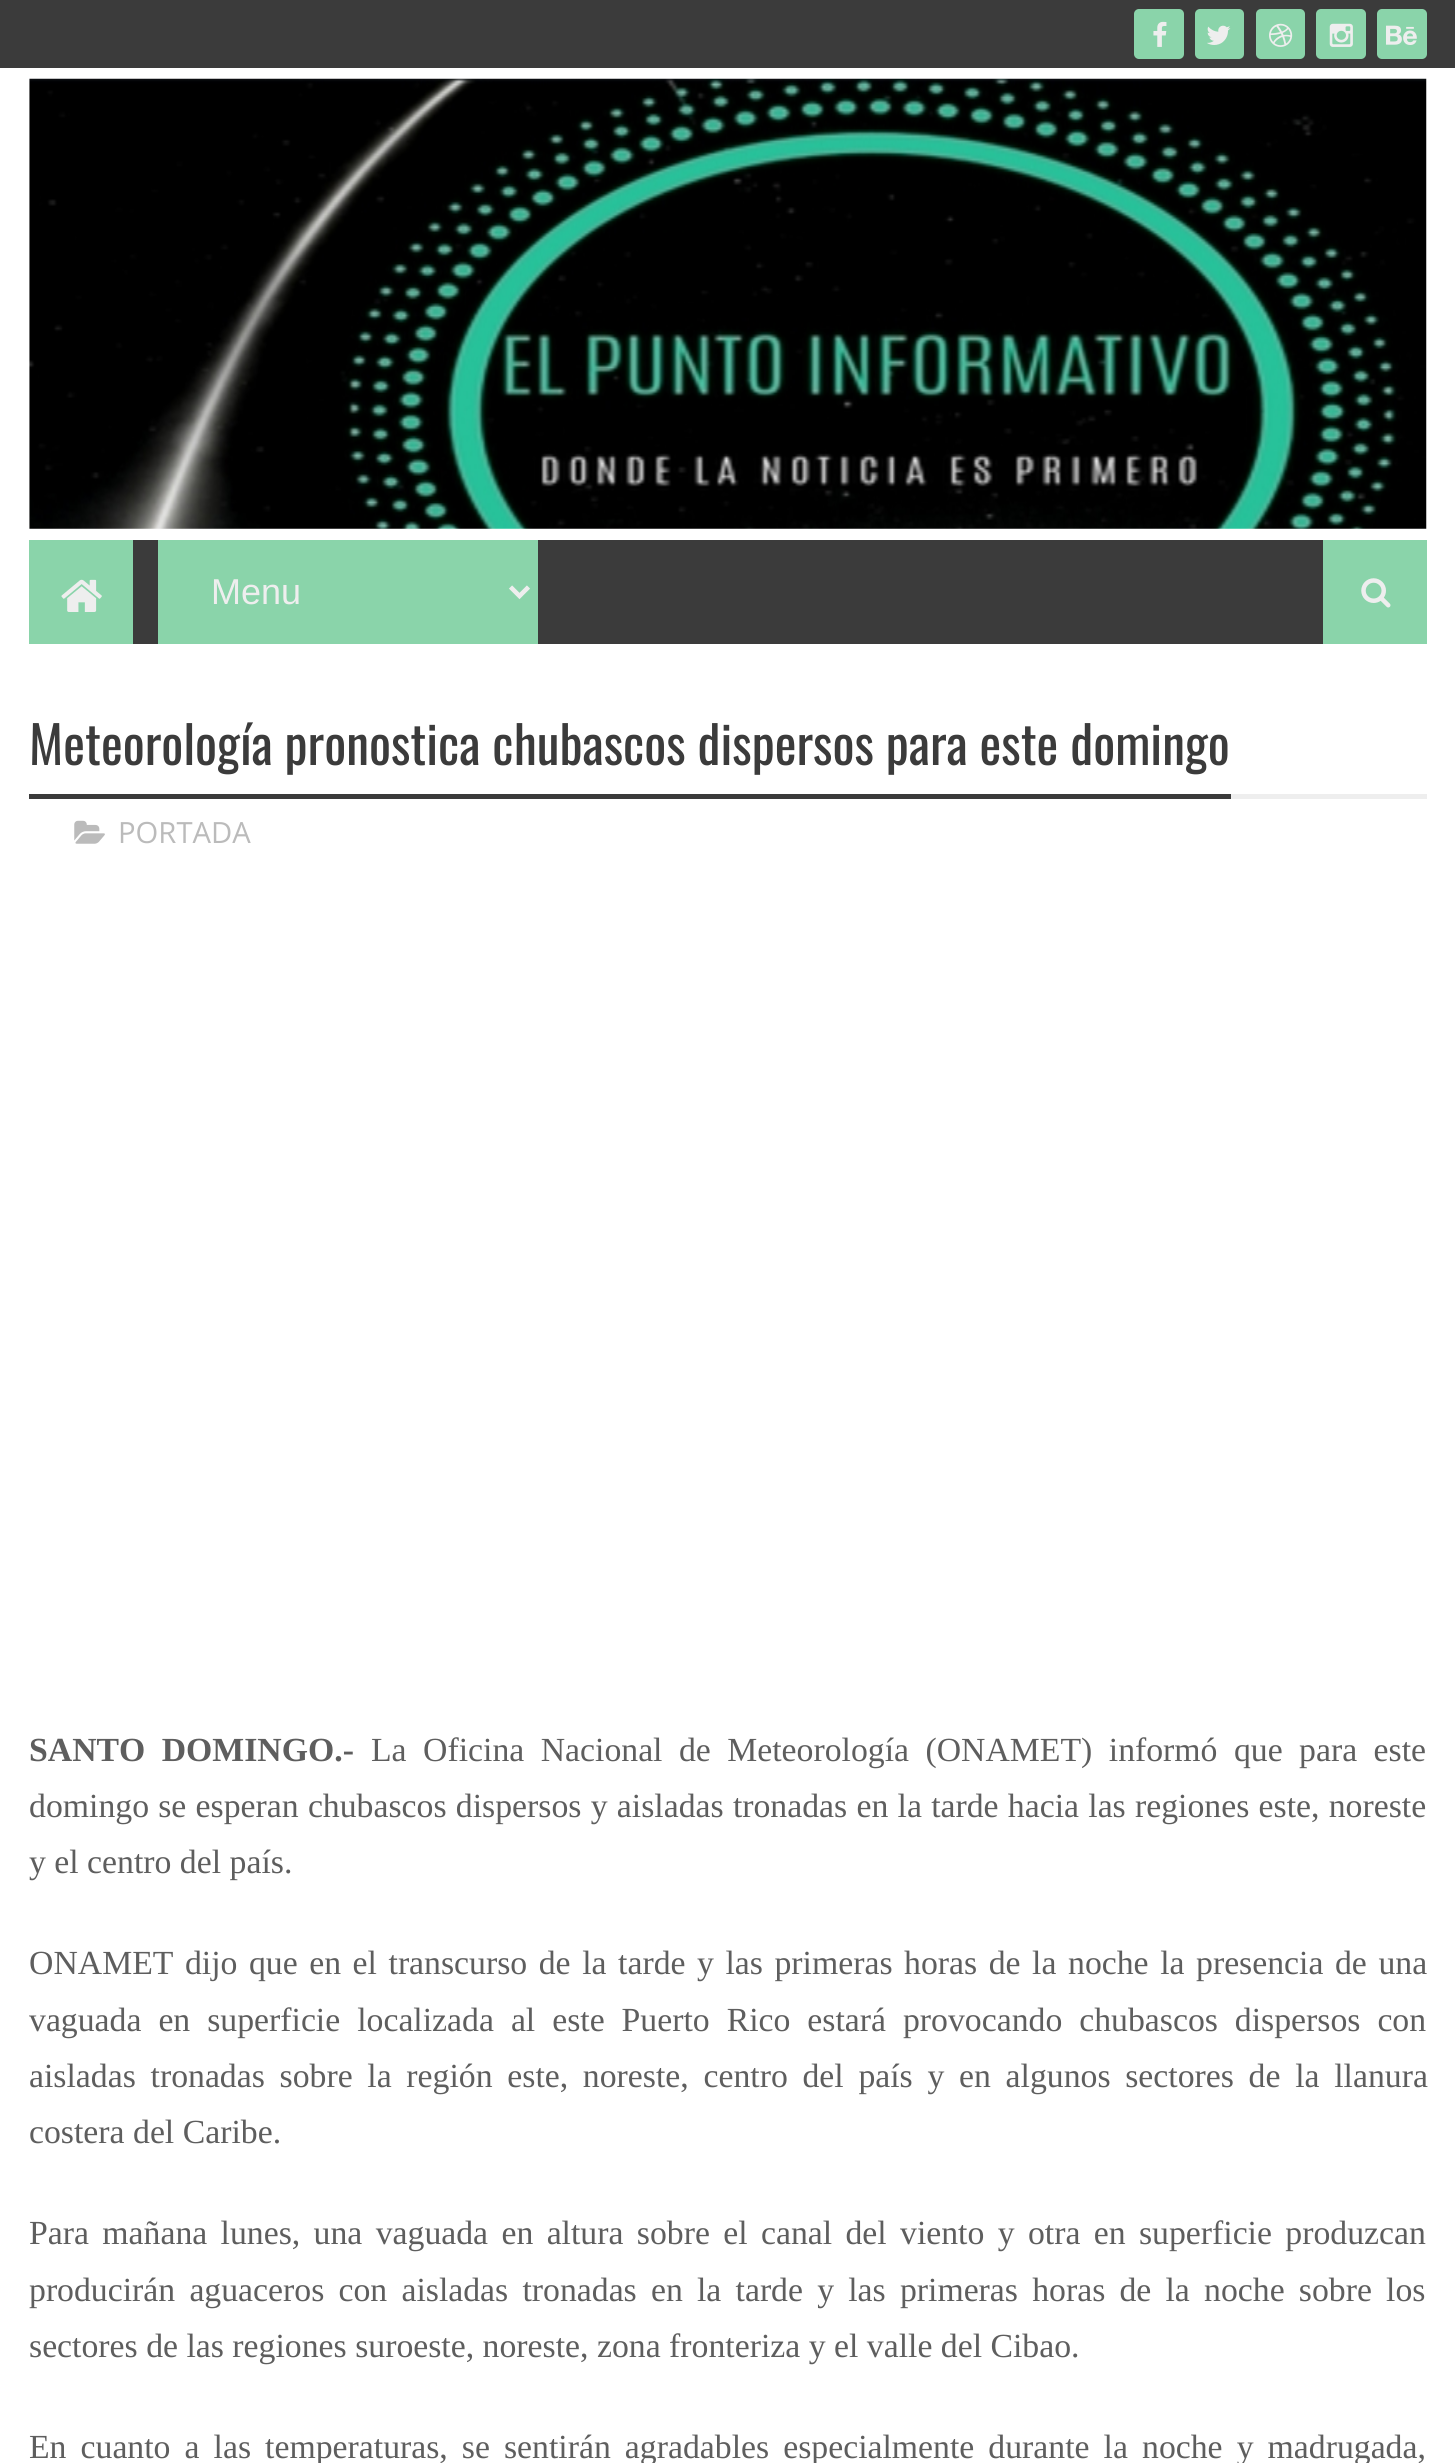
#include <cairo/cairo.h>
#include <math.h>
#include <stddef.h>

static cairo_t *cr;

static void rgb(unsigned color)
{
	cairo_set_source_rgb(cr, (color >> 16) / 255.0, (color >> 8 & 255) / 255.0, (color & 255) / 255.0);
}

static void tracked(double x, double y, const char *s, double letter, double word)
{
	cairo_move_to(cr, x, y);
	while (*s) {
		char ch[5] = {0};
		int n = 0;
		do ch[n++] = *s++; while ((*s & 0xC0) == 0x80);
		cairo_show_text(cr, ch);
		cairo_rel_move_to(cr, letter + word * (*ch == ' '), 0);
	}
}

static void rrect(double x, double y, double w, double h, double r)
{
	cairo_new_sub_path(cr);
	cairo_arc(cr, x + w - r, y + h - r, r, 0, M_PI / 2);
	cairo_arc(cr, x + r, y + h - r, r, M_PI / 2, M_PI);
	cairo_arc(cr, x + r, y + r, r, M_PI, 1.5 * M_PI);
	cairo_arc(cr, x + w - r, y + r, r, 1.5 * M_PI, 2 * M_PI);
	cairo_close_path(cr);
}

static void image(const char *path, double x, double y, double w, double h)
{
	cairo_surface_t *image = cairo_image_surface_create_from_png(path);
	cairo_save(cr);
	cairo_set_source_surface(cr, image, x, y);
	cairo_rectangle(cr, x, y, w, h);
	cairo_fill(cr);
	cairo_restore(cr);
	cairo_surface_destroy(image);
}

int main(void) {
	cairo_surface_t *surface = cairo_image_surface_create(CAIRO_FORMAT_RGB24, 1455, 2463);
	cr = cairo_create(surface);
	cairo_font_options_t *options = cairo_font_options_create();
	cairo_font_options_set_hint_metrics(options, CAIRO_HINT_METRICS_OFF);
	cairo_font_options_set_hint_style(options, CAIRO_HINT_STYLE_NONE);
	cairo_set_font_options(cr, options);
	cairo_set_miter_limit(cr, 4);
	rgb(0xffffff);
	cairo_paint(cr);
	rgb(0x3b3b3b);
	cairo_rectangle(cr, 0, 0, 1455, 68);
	cairo_fill(cr);
	rgb(0x8ad4aa);
	rrect(1134, 9, 50, 50, 5);
	cairo_fill(cr);
	image("img/1.png", 1153, 21, 14, 26);
	rrect(1195, 9, 49, 50, 5);
	cairo_fill(cr);
	image("img/2.png", 1207, 25, 24, 20);
	rrect(1256, 9, 49, 50, 5);
	cairo_fill(cr);
	image("img/3.png", 1269, 23, 24, 24);
	rrect(1316, 9, 50, 50, 5);
	cairo_fill(cr);
	image("img/4.png", 1329, 23, 24, 24);
	rrect(1377, 9, 50, 50, 5);
	cairo_fill(cr);
	image("img/5.png", 1386, 25, 31, 20);
	image("img/6.png", 29, 78, 1398, 451);
	rgb(0x3b3b3b);
	cairo_rectangle(cr, 133, 540, 1190, 104);
	cairo_fill(cr);
	rgb(0x8ad4aa);
	cairo_rectangle(cr, 29, 540, 104, 104);
	cairo_fill(cr);
	image("img/7.png", 61, 579, 41, 33);
	cairo_rectangle(cr, 158, 540, 380, 104);
	cairo_fill(cr);
	cairo_new_path(cr);
	cairo_move_to(cr, 510.5, 587);
	cairo_line_to(cr, 519.5, 596);
	cairo_line_to(cr, 528.5, 587);
	rgb(0xeeeeee);
	cairo_set_line_width(cr, 4.5);
	cairo_stroke(cr);
	rgb(0x8ad4aa);
	cairo_rectangle(cr, 1323, 540, 104, 104);
	cairo_fill(cr);
	image("img/8.png", 1361, 578, 30, 30);
	rgb(0xeeeeee);
	cairo_rectangle(cr, 1231, 794, 196, 5);
	cairo_fill(cr);
	rgb(0x3b3b3b);
	cairo_rectangle(cr, 29, 794, 1202, 5);
	cairo_fill(cr);
	image("img/9.png", 74, 820, 31, 24);
	cairo_select_font_face(cr, "Liberation Sans", CAIRO_FONT_SLANT_NORMAL, CAIRO_FONT_WEIGHT_NORMAL);
	cairo_set_font_size(cr, 36);
	rgb(0xeeeeee);
	cairo_move_to(cr, 211, 604);
	cairo_show_text(cr, "Menu");
	cairo_select_font_face(cr, "Oswald", CAIRO_FONT_SLANT_NORMAL, CAIRO_FONT_WEIGHT_NORMAL);
	cairo_set_font_size(cr, 51.75);
	rgb(0x3b3b3b);
	cairo_move_to(cr, 29, 765);
	cairo_show_text(cr, "Meteorología pronostica chubascos dispersos para este domingo");
	cairo_select_font_face(cr, "Open Sans", CAIRO_FONT_SLANT_NORMAL, CAIRO_FONT_WEIGHT_NORMAL);
	cairo_set_font_size(cr, 29.25);
	rgb(0xbbbbbb);
	cairo_move_to(cr, 118, 843);
	cairo_show_text(cr, "PORTADA");
	cairo_select_font_face(cr, "Liberation Serif", CAIRO_FONT_SLANT_NORMAL, CAIRO_FONT_WEIGHT_BOLD);
	cairo_set_font_size(cr, 33.75);
	rgb(0x5e5e5e);
	tracked(29, 1761, "SANTO DOMINGO.-", 0, 8);
	cairo_select_font_face(cr, "Liberation Serif", CAIRO_FONT_SLANT_NORMAL, CAIRO_FONT_WEIGHT_NORMAL);
	tracked(371, 1761, "La Oficina Nacional de Meteorología (ONAMET) informó que para este", 0, 8);
	tracked(29, 1817, "domingo se esperan chubascos dispersos y aisladas tronadas en la tarde hacia las regiones este, noreste", 0, 0.8);
	cairo_move_to(cr, 29, 1873);
	cairo_show_text(cr, "y el centro del país.");
	tracked(29, 1974, "ONAMET dijo que en el transcurso de la tarde y las primeras horas de la noche la presencia de una", 0, 3.1);
	tracked(29, 2031, "vaguada en superficie localizada al este Puerto Rico estará provocando chubascos dispersos con", 0, 8.5);
	tracked(29, 2087, "aisladas tronadas sobre la región este, noreste, centro del país y en algunos sectores de la llanura", 0, 6.25);
	cairo_move_to(cr, 29, 2143);
	cairo_show_text(cr, "costera del Caribe.");
	tracked(29, 2244, "Para mañana lunes, una vaguada en altura sobre el canal del viento y otra en superficie produzcan", 0, 4.9);
	tracked(29, 2301, "producirán aguaceros con aisladas tronadas en la tarde y las primeras horas de la noche sobre los", 0, 5.75);
	cairo_move_to(cr, 29, 2357);
	cairo_show_text(cr, "sectores de las regiones suroeste, noreste, zona fronteriza y el valle del Cibao.");
	tracked(29, 2458, "En cuanto a las temperaturas, se sentirán agradables especialmente durante la noche y madrugada,", 0, 5.6);
	cairo_surface_write_to_png(surface, "page.png");
	cairo_font_options_destroy(options);
	cairo_destroy(cr);
	cairo_surface_destroy(surface);
	return 0;
}
